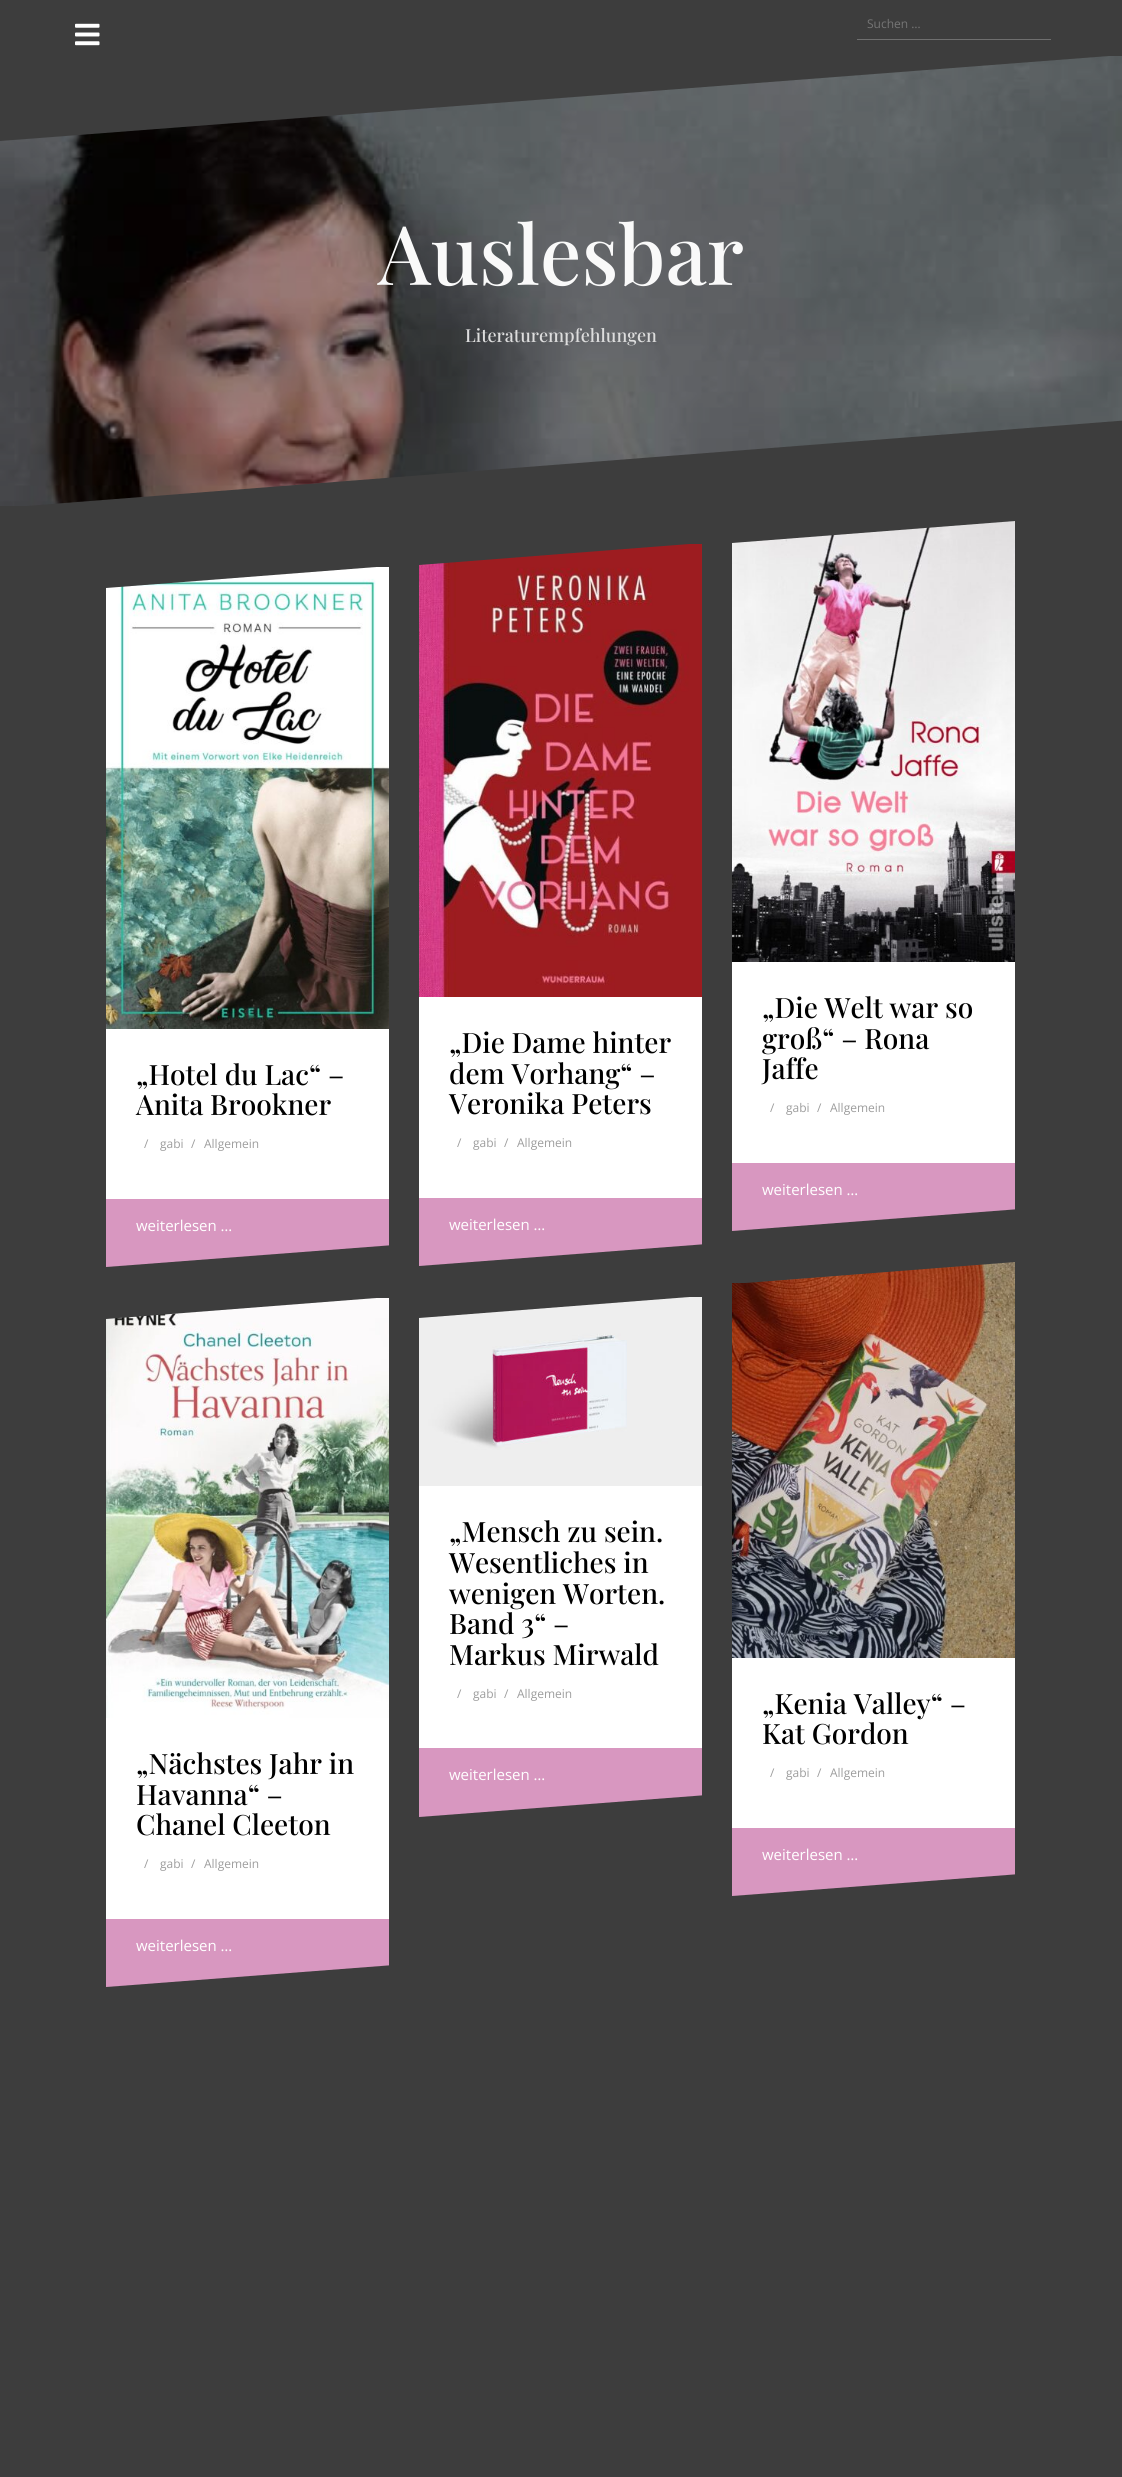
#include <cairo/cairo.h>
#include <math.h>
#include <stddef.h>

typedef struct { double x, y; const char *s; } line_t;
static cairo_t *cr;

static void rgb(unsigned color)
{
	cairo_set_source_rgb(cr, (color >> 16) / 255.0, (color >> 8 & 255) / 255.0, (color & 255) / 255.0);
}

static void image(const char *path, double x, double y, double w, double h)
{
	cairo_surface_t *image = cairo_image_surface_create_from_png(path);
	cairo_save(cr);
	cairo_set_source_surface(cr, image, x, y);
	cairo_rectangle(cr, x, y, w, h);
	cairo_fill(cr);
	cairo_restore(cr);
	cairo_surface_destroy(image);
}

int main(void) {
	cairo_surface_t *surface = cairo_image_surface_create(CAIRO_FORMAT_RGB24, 1122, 2477);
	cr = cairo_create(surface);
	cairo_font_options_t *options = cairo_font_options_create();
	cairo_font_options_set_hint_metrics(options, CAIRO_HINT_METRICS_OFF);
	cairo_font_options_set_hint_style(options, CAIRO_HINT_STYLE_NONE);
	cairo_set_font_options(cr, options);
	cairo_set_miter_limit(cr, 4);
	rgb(0x3d3d3d);
	cairo_paint(cr);
	image("img/1.png", 75, 23, 25, 23);
	rgb(0x6f6f6f);
	cairo_rectangle(cr, 857, 39, 194, 1);
	cairo_fill(cr);
	image("img/2.png", 0, 56, 1122, 450);
	rgb(0x3d3d3d);
	cairo_new_path(cr);
	cairo_move_to(cr, 0, 141);
	cairo_line_to(cr, 0, 55);
	cairo_line_to(cr, 1122, 55);
	cairo_fill(cr);
	cairo_new_path(cr);
	cairo_move_to(cr, 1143, 419);
	cairo_line_to(cr, 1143, 508);
	cairo_line_to(cr, 0, 508);
	cairo_fill(cr);
	image("img/3.png", 106, 567, 283, 462);
	cairo_new_path(cr);
	cairo_move_to(cr, 106, 588);
	cairo_line_to(cr, 106, 566);
	cairo_line_to(cr, 389, 566);
	cairo_fill(cr);
	rgb(0xffffff);
	cairo_rectangle(cr, 106, 1029, 283, 170);
	cairo_fill(cr);
	rgb(0xd897c0);
	cairo_rectangle(cr, 106, 1199, 283, 68);
	cairo_fill(cr);
	cairo_save(cr);
	cairo_rectangle(cr, 106, 1245, 283, 22);
	cairo_clip(cr);
	rgb(0x3d3d3d);
	cairo_new_path(cr);
	cairo_move_to(cr, 394, 1245);
	cairo_line_to(cr, 394, 1267);
	cairo_line_to(cr, 106, 1267);
	cairo_fill(cr);
	cairo_restore(cr);
	image("img/4.png", 419, 544, 283, 453);
	rgb(0x3d3d3d);
	cairo_new_path(cr);
	cairo_move_to(cr, 419, 565);
	cairo_line_to(cr, 419, 543);
	cairo_line_to(cr, 702, 543);
	cairo_fill(cr);
	rgb(0xffffff);
	cairo_rectangle(cr, 419, 997, 283, 201);
	cairo_fill(cr);
	rgb(0xd897c0);
	cairo_rectangle(cr, 419, 1198, 283, 68);
	cairo_fill(cr);
	cairo_save(cr);
	cairo_rectangle(cr, 419, 1244, 283, 22);
	cairo_clip(cr);
	rgb(0x3d3d3d);
	cairo_new_path(cr);
	cairo_move_to(cr, 707, 1244);
	cairo_line_to(cr, 707, 1266);
	cairo_line_to(cr, 419, 1266);
	cairo_fill(cr);
	cairo_restore(cr);
	image("img/5.png", 732, 521, 283, 441);
	rgb(0x3d3d3d);
	cairo_new_path(cr);
	cairo_move_to(cr, 732, 543);
	cairo_line_to(cr, 732, 521);
	cairo_line_to(cr, 1015, 521);
	cairo_fill(cr);
	rgb(0xffffff);
	cairo_rectangle(cr, 732, 962, 283, 201);
	cairo_fill(cr);
	rgb(0xd897c0);
	cairo_rectangle(cr, 732, 1163, 283, 68);
	cairo_fill(cr);
	cairo_save(cr);
	cairo_rectangle(cr, 732, 1209, 283, 23);
	cairo_clip(cr);
	rgb(0x3d3d3d);
	cairo_new_path(cr);
	cairo_move_to(cr, 1020, 1209);
	cairo_line_to(cr, 1020, 1231);
	cairo_line_to(cr, 732, 1231);
	cairo_fill(cr);
	cairo_restore(cr);
	image("img/6.png", 106, 1298, 283, 420);
	rgb(0x3d3d3d);
	cairo_new_path(cr);
	cairo_move_to(cr, 106, 1319);
	cairo_line_to(cr, 106, 1297);
	cairo_line_to(cr, 389, 1297);
	cairo_fill(cr);
	rgb(0xffffff);
	cairo_rectangle(cr, 106, 1718, 283, 201);
	cairo_fill(cr);
	rgb(0xd897c0);
	cairo_rectangle(cr, 106, 1919, 283, 68);
	cairo_fill(cr);
	cairo_save(cr);
	cairo_rectangle(cr, 106, 1965, 283, 23);
	cairo_clip(cr);
	rgb(0x3d3d3d);
	cairo_new_path(cr);
	cairo_move_to(cr, 394, 1965);
	cairo_line_to(cr, 394, 1987);
	cairo_line_to(cr, 106, 1987);
	cairo_fill(cr);
	cairo_restore(cr);
	image("img/7.png", 419, 1297, 283, 189);
	rgb(0x3d3d3d);
	cairo_new_path(cr);
	cairo_move_to(cr, 419, 1318);
	cairo_line_to(cr, 419, 1296);
	cairo_line_to(cr, 702, 1296);
	cairo_fill(cr);
	rgb(0xffffff);
	cairo_rectangle(cr, 419, 1486, 283, 262);
	cairo_fill(cr);
	rgb(0xd897c0);
	cairo_rectangle(cr, 419, 1748, 283, 69);
	cairo_fill(cr);
	cairo_save(cr);
	cairo_rectangle(cr, 419, 1795, 283, 22);
	cairo_clip(cr);
	rgb(0x3d3d3d);
	cairo_new_path(cr);
	cairo_move_to(cr, 707, 1795);
	cairo_line_to(cr, 707, 1817);
	cairo_line_to(cr, 419, 1817);
	cairo_fill(cr);
	cairo_restore(cr);
	image("img/8.png", 732, 1262, 283, 396);
	cairo_save(cr);
	cairo_rectangle(cr, 732, 1262, 283, 21);
	cairo_clip(cr);
	rgb(0x3d3d3d);
	cairo_new_path(cr);
	cairo_move_to(cr, 732, 1284);
	cairo_line_to(cr, 732, 1262);
	cairo_line_to(cr, 1015, 1262);
	cairo_fill(cr);
	cairo_restore(cr);
	rgb(0xffffff);
	cairo_rectangle(cr, 732, 1658, 283, 170);
	cairo_fill(cr);
	rgb(0xd897c0);
	cairo_rectangle(cr, 732, 1828, 283, 68);
	cairo_fill(cr);
	cairo_save(cr);
	cairo_rectangle(cr, 732, 1874, 283, 22);
	cairo_clip(cr);
	rgb(0x3d3d3d);
	cairo_new_path(cr);
	cairo_move_to(cr, 1020, 1874);
	cairo_line_to(cr, 1020, 1896);
	cairo_line_to(cr, 732, 1896);
	cairo_fill(cr);
	cairo_restore(cr);
	cairo_select_font_face(cr, "Open Sans", CAIRO_FONT_SLANT_NORMAL, CAIRO_FONT_WEIGHT_NORMAL);
	cairo_set_font_size(cr, 12);
	rgb(0x757575);
	cairo_move_to(cr, 867, 28);
	cairo_show_text(cr, "Suchen …");
	cairo_select_font_face(cr, "Playfair Display Medium", CAIRO_FONT_SLANT_NORMAL, CAIRO_FONT_WEIGHT_NORMAL);
	cairo_set_font_size(cr, 82);
	rgb(0xf9f9f9);
	cairo_move_to(cr, 378, 285);
	cairo_show_text(cr, "Auslesbar");
	cairo_set_font_size(cr, 18);
	rgb(0xdddddd);
	cairo_move_to(cr, 465, 342);
	cairo_show_text(cr, "Literaturempfehlungen");
	cairo_set_font_size(cr, 28);
	rgb(0x000000);
	cairo_move_to(cr, 136, 1085);
	cairo_show_text(cr, "„Hotel du Lac“ –");
	cairo_move_to(cr, 136, 1115);
	cairo_show_text(cr, "Anita Brookner");
	cairo_select_font_face(cr, "Open Sans", CAIRO_FONT_SLANT_NORMAL, CAIRO_FONT_WEIGHT_NORMAL);
	cairo_set_font_size(cr, 12);
	rgb(0x9d9d9d);
	{
		static const line_t items[] = {
			{144, 1148, "/"},
			{160, 1148, "gabi"},
			{191, 1148, "/"},
			{204, 1148, "Allgemein"},
		};
		for (size_t i = 0; i < sizeof items / sizeof *items; i++) {
			cairo_move_to(cr, items[i].x, items[i].y);
			cairo_show_text(cr, items[i].s);
		}
	}
	cairo_set_font_size(cr, 15);
	rgb(0xffffff);
	cairo_move_to(cr, 136, 1231);
	cairo_show_text(cr, "weiterlesen …");
	cairo_select_font_face(cr, "Playfair Display Medium", CAIRO_FONT_SLANT_NORMAL, CAIRO_FONT_WEIGHT_NORMAL);
	cairo_set_font_size(cr, 28);
	rgb(0x000000);
	{
		static const line_t items[] = {
			{449, 1053, "„Die Dame hinter"},
			{449, 1084, "dem Vorhang“ –"},
			{449, 1114, "Veronika Peters"},
		};
		for (size_t i = 0; i < sizeof items / sizeof *items; i++) {
			cairo_move_to(cr, items[i].x, items[i].y);
			cairo_show_text(cr, items[i].s);
		}
	}
	cairo_select_font_face(cr, "Open Sans", CAIRO_FONT_SLANT_NORMAL, CAIRO_FONT_WEIGHT_NORMAL);
	cairo_set_font_size(cr, 12);
	rgb(0x9d9d9d);
	{
		static const line_t items[] = {
			{457, 1147, "/"},
			{473, 1147, "gabi"},
			{504, 1147, "/"},
			{517, 1147, "Allgemein"},
		};
		for (size_t i = 0; i < sizeof items / sizeof *items; i++) {
			cairo_move_to(cr, items[i].x, items[i].y);
			cairo_show_text(cr, items[i].s);
		}
	}
	cairo_set_font_size(cr, 15);
	rgb(0xffffff);
	cairo_move_to(cr, 449, 1230);
	cairo_show_text(cr, "weiterlesen …");
	cairo_select_font_face(cr, "Playfair Display Medium", CAIRO_FONT_SLANT_NORMAL, CAIRO_FONT_WEIGHT_NORMAL);
	cairo_set_font_size(cr, 28);
	rgb(0x000000);
	{
		static const line_t items[] = {
			{762, 1018, "„Die Welt war so"},
			{762, 1049, "groß“ – Rona"},
			{762, 1079, "Jaffe"},
		};
		for (size_t i = 0; i < sizeof items / sizeof *items; i++) {
			cairo_move_to(cr, items[i].x, items[i].y);
			cairo_show_text(cr, items[i].s);
		}
	}
	cairo_select_font_face(cr, "Open Sans", CAIRO_FONT_SLANT_NORMAL, CAIRO_FONT_WEIGHT_NORMAL);
	cairo_set_font_size(cr, 12);
	rgb(0x9d9d9d);
	{
		static const line_t items[] = {
			{770, 1112, "/"},
			{786, 1112, "gabi"},
			{817, 1112, "/"},
			{830, 1112, "Allgemein"},
		};
		for (size_t i = 0; i < sizeof items / sizeof *items; i++) {
			cairo_move_to(cr, items[i].x, items[i].y);
			cairo_show_text(cr, items[i].s);
		}
	}
	cairo_set_font_size(cr, 15);
	rgb(0xffffff);
	cairo_move_to(cr, 762, 1195);
	cairo_show_text(cr, "weiterlesen …");
	cairo_select_font_face(cr, "Playfair Display Medium", CAIRO_FONT_SLANT_NORMAL, CAIRO_FONT_WEIGHT_NORMAL);
	cairo_set_font_size(cr, 28);
	rgb(0x000000);
	{
		static const line_t items[] = {
			{136, 1774, "„Nächstes Jahr in"},
			{136, 1805, "Havanna“ –"},
			{136, 1835, "Chanel Cleeton"},
		};
		for (size_t i = 0; i < sizeof items / sizeof *items; i++) {
			cairo_move_to(cr, items[i].x, items[i].y);
			cairo_show_text(cr, items[i].s);
		}
	}
	cairo_select_font_face(cr, "Open Sans", CAIRO_FONT_SLANT_NORMAL, CAIRO_FONT_WEIGHT_NORMAL);
	cairo_set_font_size(cr, 12);
	rgb(0x9d9d9d);
	{
		static const line_t items[] = {
			{144, 1868, "/"},
			{160, 1868, "gabi"},
			{191, 1868, "/"},
			{204, 1868, "Allgemein"},
		};
		for (size_t i = 0; i < sizeof items / sizeof *items; i++) {
			cairo_move_to(cr, items[i].x, items[i].y);
			cairo_show_text(cr, items[i].s);
		}
	}
	cairo_set_font_size(cr, 15);
	rgb(0xffffff);
	cairo_move_to(cr, 136, 1951);
	cairo_show_text(cr, "weiterlesen …");
	cairo_select_font_face(cr, "Playfair Display Medium", CAIRO_FONT_SLANT_NORMAL, CAIRO_FONT_WEIGHT_NORMAL);
	cairo_set_font_size(cr, 28);
	rgb(0x000000);
	{
		static const line_t items[] = {
			{449, 1542, "„Mensch zu sein."},
			{449, 1573, "Wesentliches in"},
			{449, 1604, "wenigen Worten."},
			{449, 1634, "Band 3“ –"},
			{449, 1665, "Markus Mirwald"},
		};
		for (size_t i = 0; i < sizeof items / sizeof *items; i++) {
			cairo_move_to(cr, items[i].x, items[i].y);
			cairo_show_text(cr, items[i].s);
		}
	}
	cairo_select_font_face(cr, "Open Sans", CAIRO_FONT_SLANT_NORMAL, CAIRO_FONT_WEIGHT_NORMAL);
	cairo_set_font_size(cr, 12);
	rgb(0x9d9d9d);
	{
		static const line_t items[] = {
			{457, 1698, "/"},
			{473, 1698, "gabi"},
			{504, 1698, "/"},
			{517, 1698, "Allgemein"},
		};
		for (size_t i = 0; i < sizeof items / sizeof *items; i++) {
			cairo_move_to(cr, items[i].x, items[i].y);
			cairo_show_text(cr, items[i].s);
		}
	}
	cairo_set_font_size(cr, 15);
	rgb(0xffffff);
	cairo_move_to(cr, 449, 1780);
	cairo_show_text(cr, "weiterlesen …");
	cairo_select_font_face(cr, "Playfair Display Medium", CAIRO_FONT_SLANT_NORMAL, CAIRO_FONT_WEIGHT_NORMAL);
	cairo_set_font_size(cr, 28);
	rgb(0x000000);
	cairo_move_to(cr, 762, 1714);
	cairo_show_text(cr, "„Kenia Valley“ –");
	cairo_move_to(cr, 762, 1744);
	cairo_show_text(cr, "Kat Gordon");
	cairo_select_font_face(cr, "Open Sans", CAIRO_FONT_SLANT_NORMAL, CAIRO_FONT_WEIGHT_NORMAL);
	cairo_set_font_size(cr, 12);
	rgb(0x9d9d9d);
	{
		static const line_t items[] = {
			{770, 1777, "/"},
			{786, 1777, "gabi"},
			{817, 1777, "/"},
			{830, 1777, "Allgemein"},
		};
		for (size_t i = 0; i < sizeof items / sizeof *items; i++) {
			cairo_move_to(cr, items[i].x, items[i].y);
			cairo_show_text(cr, items[i].s);
		}
	}
	cairo_set_font_size(cr, 15);
	rgb(0xffffff);
	cairo_move_to(cr, 762, 1860);
	cairo_show_text(cr, "weiterlesen …");
	cairo_surface_write_to_png(surface, "page.png");
	cairo_font_options_destroy(options);
	cairo_destroy(cr);
	cairo_surface_destroy(surface);
	return 0;
}
